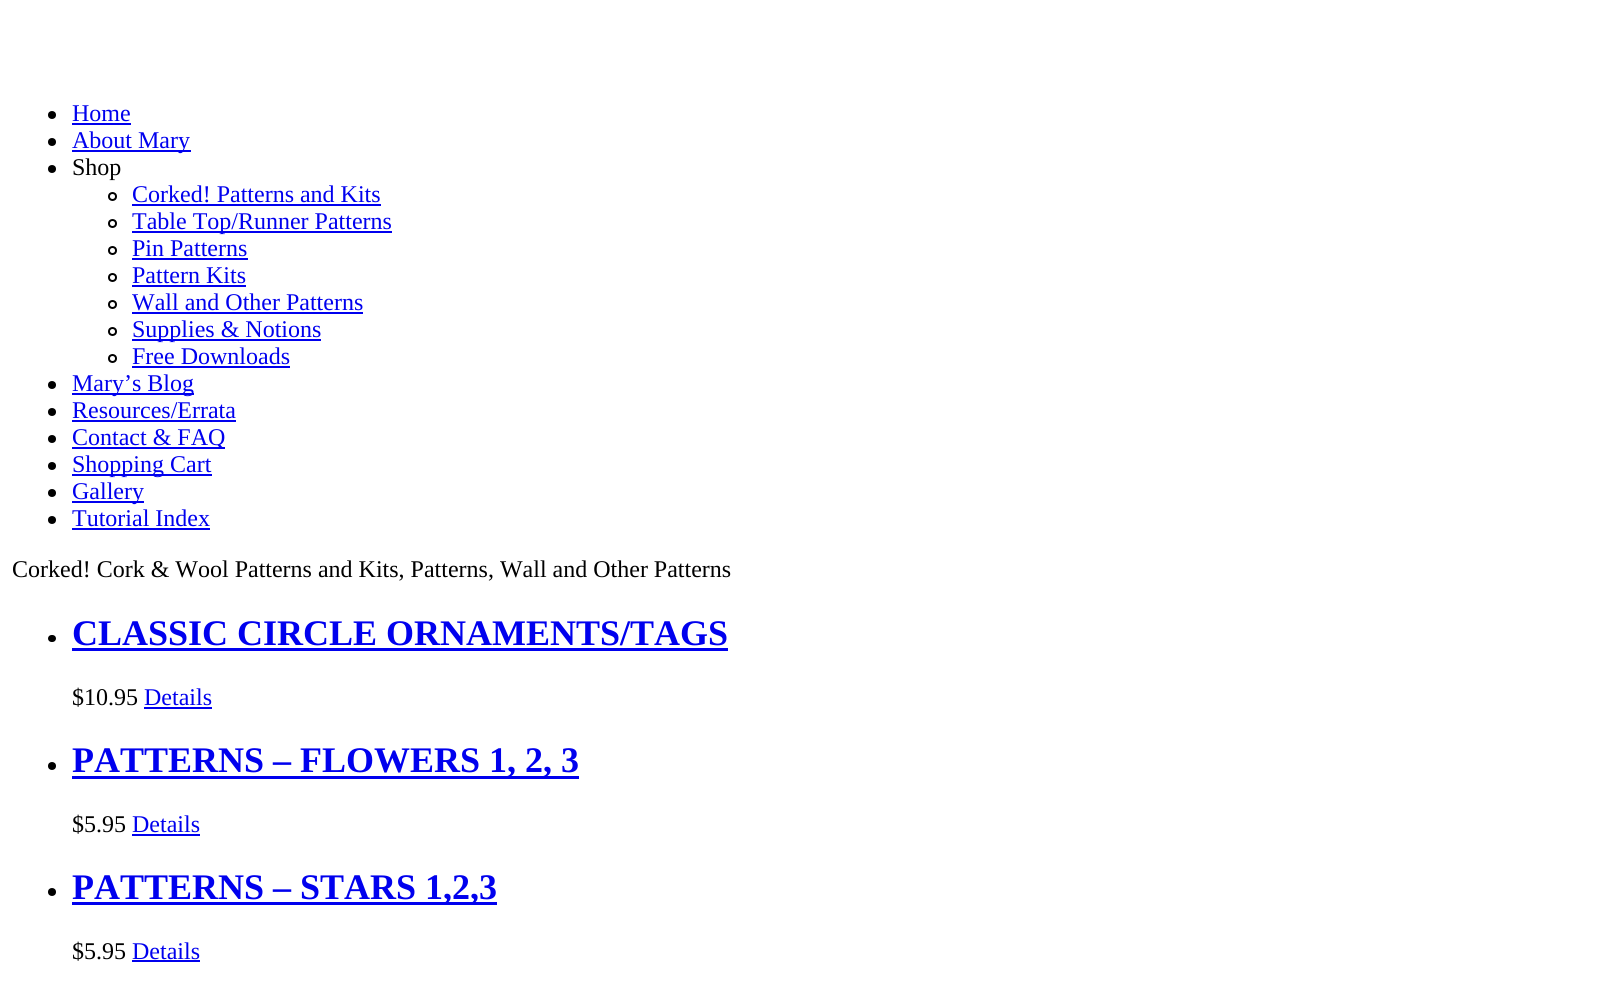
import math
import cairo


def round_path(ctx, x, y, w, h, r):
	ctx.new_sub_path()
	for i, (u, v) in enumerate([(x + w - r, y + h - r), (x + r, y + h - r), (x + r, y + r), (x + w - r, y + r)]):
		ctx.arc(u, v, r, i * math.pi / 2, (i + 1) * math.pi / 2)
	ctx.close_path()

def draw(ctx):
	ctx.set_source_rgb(1, 1, 1)
	ctx.paint()
	ctx.set_source_rgb(0, 0, 0)
	ctx.arc(52, 115, 4, 0, 2 * math.pi)
	ctx.fill()
	ctx.select_font_face('Liberation Serif')
	ctx.set_font_size(24)
	ctx.set_source_rgb(0, 0, 0.933)
	ctx.move_to(72, 121)
	ctx.show_text('Home')
	ctx.rectangle(72, 123, 59, 2)
	ctx.fill()
	ctx.set_source_rgb(0, 0, 0)
	ctx.arc(52, 142, 4, 0, 2 * math.pi)
	ctx.fill()
	ctx.set_source_rgb(0, 0, 0.933)
	ctx.rectangle(72, 150, 119, 2)
	ctx.fill()
	ctx.move_to(72, 148)
	ctx.show_text('About Mary')
	ctx.set_source_rgb(0, 0, 0)
	ctx.new_path()
	ctx.arc(52, 169, 4, 0, 2 * math.pi)
	ctx.fill()
	ctx.move_to(72, 175)
	ctx.show_text('Shop')
	ctx.new_path()
	ctx.arc(112.5, 196.5, 3.5, 0, 2 * math.pi)
	ctx.stroke()
	ctx.set_source_rgb(0, 0, 0.933)
	ctx.move_to(132, 202)
	ctx.show_text('Corked! Patterns and Kits')
	ctx.rectangle(132, 204, 249, 2)
	ctx.fill()
	ctx.arc(112.5, 223.5, 3.5, 0, 2 * math.pi)
	ctx.set_source_rgb(0, 0, 0)
	ctx.stroke()
	ctx.set_source_rgb(0, 0, 0.933)
	ctx.rectangle(132, 231, 260, 2)
	ctx.fill()
	ctx.move_to(132, 229)
	ctx.show_text('Table Top/Runner Patterns')
	ctx.new_path()
	ctx.arc(112.5, 250.5, 3.5, 0, 2 * math.pi)
	ctx.set_source_rgb(0, 0, 0)
	ctx.stroke()
	ctx.set_source_rgb(0, 0, 0.933)
	ctx.move_to(132, 256)
	ctx.show_text('Pin Patterns')
	ctx.rectangle(132, 258, 116, 2)
	ctx.fill()
	ctx.arc(112.5, 277.5, 3.5, 0, 2 * math.pi)
	ctx.set_source_rgb(0, 0, 0)
	ctx.stroke()
	ctx.set_source_rgb(0, 0, 0.933)
	ctx.move_to(132, 283)
	ctx.show_text('Pattern Kits')
	ctx.rectangle(132, 285, 114, 2)
	ctx.fill()
	ctx.arc(112.5, 304.5, 3.5, 0, 2 * math.pi)
	ctx.set_source_rgb(0, 0, 0)
	ctx.stroke()
	ctx.set_source_rgb(0, 0, 0.933)
	ctx.move_to(132, 310)
	ctx.show_text('Wall and Other Patterns')
	ctx.rectangle(132, 312, 231, 2)
	ctx.fill()
	ctx.arc(112.5, 331.5, 3.5, 0, 2 * math.pi)
	ctx.set_source_rgb(0, 0, 0)
	ctx.stroke()
	ctx.set_source_rgb(0, 0, 0.933)
	ctx.rectangle(132, 339, 189, 2)
	ctx.fill()
	ctx.move_to(132, 337)
	ctx.show_text('Supplies & Notions')
	ctx.new_path()
	ctx.arc(112.5, 358.5, 3.5, 0, 2 * math.pi)
	ctx.set_source_rgb(0, 0, 0)
	ctx.stroke()
	ctx.set_source_rgb(0, 0, 0.933)
	ctx.move_to(132, 364)
	ctx.show_text('Free Downloads')
	ctx.rectangle(132, 366, 158, 2)
	ctx.fill()
	ctx.set_source_rgb(0, 0, 0)
	ctx.arc(52, 385, 4, 0, 2 * math.pi)
	ctx.fill()
	ctx.set_source_rgb(0, 0, 0.933)
	ctx.rectangle(72, 393, 122, 2)
	ctx.fill()
	ctx.move_to(72, 391)
	ctx.show_text('Mary’s Blog')
	ctx.set_source_rgb(0, 0, 0)
	ctx.new_path()
	ctx.arc(52, 412, 4, 0, 2 * math.pi)
	ctx.fill()
	ctx.set_source_rgb(0, 0, 0.933)
	ctx.move_to(72, 418)
	ctx.show_text('Resources/Errata')
	ctx.rectangle(72, 420, 164, 2)
	ctx.fill()
	ctx.set_source_rgb(0, 0, 0)
	ctx.arc(52, 439, 4, 0, 2 * math.pi)
	ctx.fill()
	ctx.set_source_rgb(0, 0, 0.933)
	ctx.rectangle(72, 447, 153, 2)
	ctx.fill()
	ctx.move_to(72, 445)
	ctx.show_text('Contact & FAQ')
	ctx.set_source_rgb(0, 0, 0)
	ctx.new_path()
	ctx.arc(52, 466, 4, 0, 2 * math.pi)
	ctx.fill()
	ctx.set_source_rgb(0, 0, 0.933)
	ctx.rectangle(72, 474, 140, 2)
	ctx.fill()
	ctx.move_to(72, 472)
	ctx.show_text('Shopping Cart')
	ctx.set_source_rgb(0, 0, 0)
	ctx.new_path()
	ctx.arc(52, 493, 4, 0, 2 * math.pi)
	ctx.fill()
	ctx.set_source_rgb(0, 0, 0.933)
	ctx.rectangle(72, 501, 72, 2)
	ctx.fill()
	ctx.move_to(72, 499)
	ctx.show_text('Gallery')
	ctx.set_source_rgb(0, 0, 0)
	ctx.new_path()
	ctx.arc(52, 520, 4, 0, 2 * math.pi)
	ctx.fill()
	ctx.set_source_rgb(0, 0, 0.933)
	ctx.move_to(72, 526)
	ctx.show_text('Tutorial Index')
	ctx.rectangle(72, 528, 138, 2)
	ctx.fill()
	ctx.set_source_rgb(0, 0, 0)
	ctx.move_to(12, 577)
	ctx.show_text('Corked! Cork & Wool Patterns and Kits, Patterns, Wall and Other Patterns')
	round_path(ctx, 48, 635, 8, 7, 3.5)
	ctx.fill()
	ctx.select_font_face('Liberation Serif', cairo.FONT_SLANT_NORMAL, cairo.FONT_WEIGHT_BOLD)
	ctx.set_font_size(36)
	ctx.set_source_rgb(0, 0, 0.933)
	ctx.move_to(72, 645)
	ctx.show_text('CLASSIC CIRCLE ORNAMENTS/TAGS')
	ctx.rectangle(72, 648, 656, 3)
	ctx.fill()
	ctx.select_font_face('Liberation Serif')
	ctx.set_font_size(24)
	ctx.set_source_rgb(0, 0, 0)
	ctx.move_to(72, 705)
	ctx.show_text('$10.95')
	ctx.set_source_rgb(0, 0, 0.933)
	ctx.move_to(144, 705)
	ctx.show_text('Details')
	ctx.rectangle(144, 707, 68, 2)
	ctx.fill()
	ctx.set_source_rgb(0, 0, 0)
	ctx.arc(52, 766, 4, 0, 2 * math.pi)
	ctx.fill()
	ctx.set_source_rgb(0, 0, 0.933)
	ctx.rectangle(72, 776, 507, 3)
	ctx.fill()
	ctx.select_font_face('Liberation Serif', cairo.FONT_SLANT_NORMAL, cairo.FONT_WEIGHT_BOLD)
	ctx.set_font_size(36)
	ctx.move_to(72, 772)
	ctx.show_text('PATTERNS – FLOWERS 1, 2, 3')
	ctx.select_font_face('Liberation Serif')
	ctx.set_font_size(24)
	ctx.set_source_rgb(0, 0, 0)
	ctx.move_to(72, 832)
	ctx.show_text('$5.95')
	ctx.set_source_rgb(0, 0, 0.933)
	ctx.move_to(132, 832)
	ctx.show_text('Details')
	ctx.rectangle(132, 834, 68, 2)
	ctx.fill()
	ctx.set_source_rgb(0, 0, 0)
	ctx.arc(52, 892, 4, 0, 2 * math.pi)
	ctx.fill()
	ctx.set_source_rgb(0, 0, 0.933)
	ctx.rectangle(72, 902, 425, 3)
	ctx.fill()
	ctx.select_font_face('Liberation Serif', cairo.FONT_SLANT_NORMAL, cairo.FONT_WEIGHT_BOLD)
	ctx.set_font_size(36)
	ctx.move_to(72, 899)
	ctx.show_text('PATTERNS – STARS 1,2,3')
	ctx.select_font_face('Liberation Serif')
	ctx.set_font_size(24)
	ctx.set_source_rgb(0, 0, 0)
	ctx.move_to(72, 959)
	ctx.show_text('$5.95')
	ctx.set_source_rgb(0, 0, 0.933)
	ctx.move_to(132, 959)
	ctx.show_text('Details')
	ctx.rectangle(132, 960, 68, 2)
	ctx.fill()


surface = cairo.ImageSurface(cairo.FORMAT_RGB24, 1621, 998)
ctx = cairo.Context(surface)
options = cairo.FontOptions()
options.set_hint_metrics(cairo.HINT_METRICS_OFF)
options.set_hint_style(cairo.HINT_STYLE_NONE)
ctx.set_font_options(options)
ctx.set_miter_limit(4)
draw(ctx)
surface.write_to_png('image.png')
